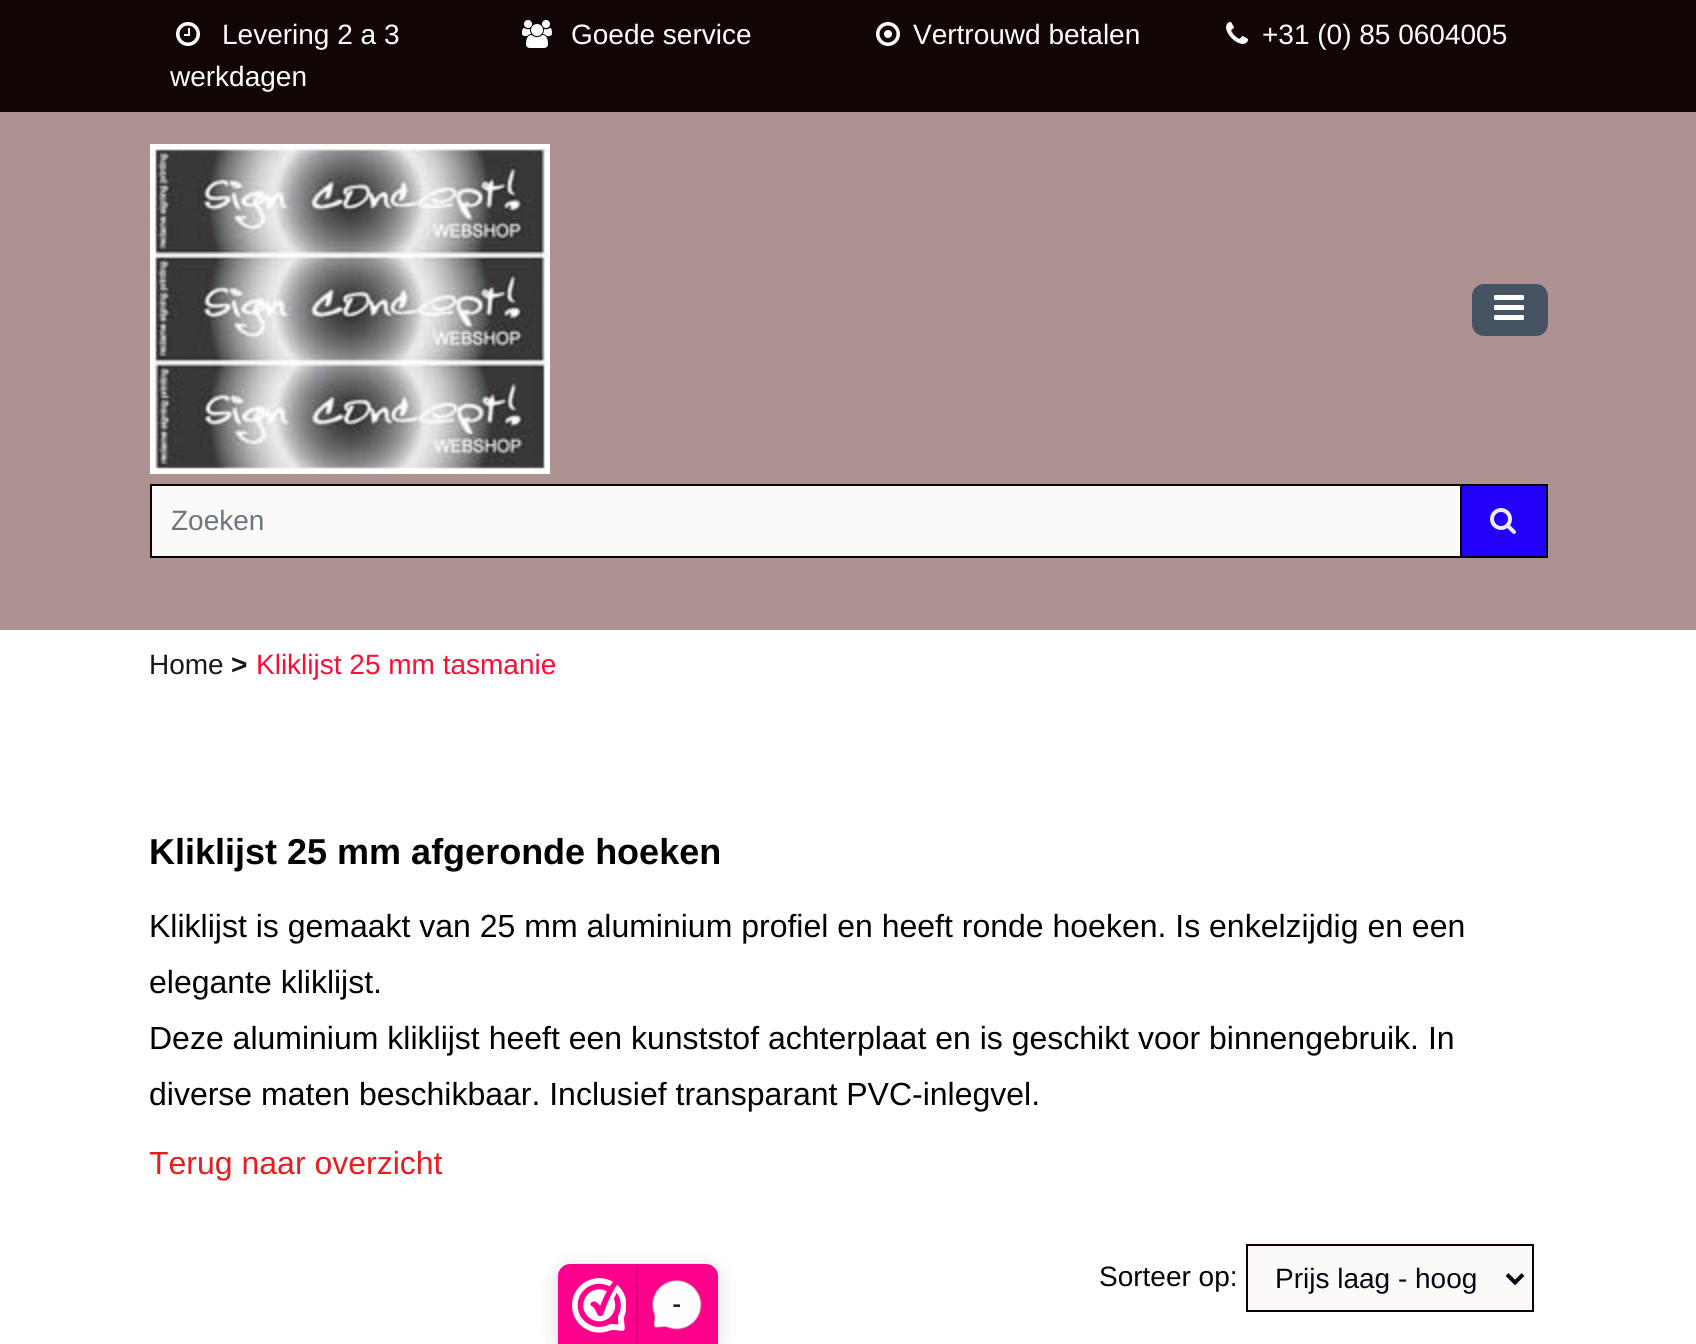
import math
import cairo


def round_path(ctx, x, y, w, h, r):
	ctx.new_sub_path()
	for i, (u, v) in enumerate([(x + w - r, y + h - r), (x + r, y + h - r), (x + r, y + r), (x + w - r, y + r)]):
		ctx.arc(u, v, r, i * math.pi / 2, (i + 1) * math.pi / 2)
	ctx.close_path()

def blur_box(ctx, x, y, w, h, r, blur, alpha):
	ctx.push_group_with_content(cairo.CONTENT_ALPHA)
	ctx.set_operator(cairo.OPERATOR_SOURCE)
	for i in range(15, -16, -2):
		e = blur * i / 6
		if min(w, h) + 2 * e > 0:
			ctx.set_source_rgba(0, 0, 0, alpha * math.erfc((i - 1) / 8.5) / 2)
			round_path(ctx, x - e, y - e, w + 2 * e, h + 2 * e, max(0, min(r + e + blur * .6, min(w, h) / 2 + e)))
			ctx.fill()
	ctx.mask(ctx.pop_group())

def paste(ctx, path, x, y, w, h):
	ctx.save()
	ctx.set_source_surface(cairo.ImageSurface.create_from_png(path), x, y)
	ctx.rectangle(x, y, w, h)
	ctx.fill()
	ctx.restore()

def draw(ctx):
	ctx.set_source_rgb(1, 1, 1)
	ctx.paint()
	ctx.set_source_rgb(0.071, 0.02, 0.02)
	ctx.rectangle(0, 0, 1696, 112)
	ctx.fill()
	paste(ctx, 'media/1.png', 176, 22, 24, 24)
	ctx.select_font_face('Liberation Sans')
	ctx.set_font_size(28)
	ctx.set_source_rgb(1, 1, 1)
	ctx.move_to(222, 44)
	ctx.show_text('Levering 2 a 3')
	ctx.move_to(170, 86)
	ctx.show_text('werkdagen')
	paste(ctx, 'media/2.png', 522, 20, 30, 28)
	ctx.move_to(571, 44)
	ctx.show_text('Goede service')
	paste(ctx, 'media/3.png', 876, 22, 24, 24)
	ctx.move_to(913, 44)
	ctx.show_text('Vertrouwd betalen')
	paste(ctx, 'media/4.png', 1226, 22, 22, 22)
	ctx.move_to(1262, 44)
	ctx.show_text('+31 (0) 85 0604005')
	ctx.set_source_rgb(0.682, 0.569, 0.569)
	ctx.rectangle(0, 112, 1696, 518)
	ctx.fill()
	paste(ctx, 'media/5.png', 150, 144, 400, 330)
	ctx.set_source_rgb(0.275, 0.325, 0.388)
	round_path(ctx, 1473, 285, 74, 50, 11)
	ctx.fill_preserve()
	ctx.stroke()
	paste(ctx, 'media/6.png', 1494, 295, 30, 25)
	ctx.set_source_rgb(0.988, 0.976, 0.976)
	ctx.rectangle(151, 485, 1310, 72)
	ctx.fill_preserve()
	ctx.set_source_rgb(0.059, 0, 0)
	ctx.stroke()
	ctx.set_source_rgb(0.424, 0.459, 0.49)
	ctx.move_to(171, 530)
	ctx.show_text('Zoeken')
	ctx.set_source_rgb(0.137, 0, 0.988)
	ctx.rectangle(1461, 485, 86, 72)
	ctx.fill_preserve()
	ctx.set_source_rgb(0, 0, 0.016)
	ctx.stroke()
	paste(ctx, 'media/7.png', 1490, 508, 26, 26)
	ctx.set_source_rgb(0.11, 0.09, 0.09)
	ctx.move_to(149, 674)
	ctx.show_text('Home')
	ctx.select_font_face('Liberation Sans', cairo.FONT_SLANT_NORMAL, cairo.FONT_WEIGHT_BOLD)
	ctx.move_to(231, 674)
	ctx.show_text('>')
	ctx.select_font_face('Liberation Sans')
	ctx.set_source_rgb(0.973, 0.055, 0.204)
	ctx.move_to(256, 674)
	ctx.show_text('Kliklijst 25 mm tasmanie')
	ctx.select_font_face('Liberation Sans', cairo.FONT_SLANT_NORMAL, cairo.FONT_WEIGHT_BOLD)
	ctx.set_font_size(36)
	ctx.set_source_rgb(0.02, 0, 0)
	ctx.move_to(149, 864)
	ctx.show_text('Kliklijst 25 mm afgeronde hoeken')
	ctx.select_font_face('Liberation Sans')
	ctx.set_font_size(32)
	for x, y, s in [
		(149, 937, 'Kliklijst is gemaakt van 25 mm aluminium profiel en heeft ronde hoeken. Is enkelzijdig en een'),
		(149, 993, 'elegante kliklijst.'),
		(149, 1049, 'Deze aluminium kliklijst heeft een kunststof achterplaat en is geschikt voor binnengebruik. In'),
		(149, 1105, 'diverse maten beschikbaar. Inclusief transparant PVC-inlegvel.'),
	]:
		ctx.move_to(x, y)
		ctx.show_text(s)
	ctx.set_source_rgb(0.906, 0.118, 0.118)
	ctx.move_to(149, 1174)
	ctx.show_text('Terug naar overzicht')
	ctx.set_font_size(28)
	ctx.set_source_rgb(0.02, 0, 0)
	ctx.move_to(1099, 1286)
	ctx.show_text('Sorteer op:')
	ctx.set_source_rgb(0.988, 0.976, 0.976)
	ctx.rectangle(1247, 1245, 286, 66)
	ctx.fill_preserve()
	ctx.set_source_rgb(0.059, 0, 0)
	ctx.stroke()
	ctx.new_path()
	ctx.move_to(1507, 1274.5)
	ctx.line_to(1515, 1282.5)
	ctx.line_to(1523, 1274.5)
	ctx.set_source_rgb(0.024, 0.024, 0.078)
	ctx.set_line_width(4)
	ctx.stroke()
	ctx.move_to(1275, 1288)
	ctx.show_text('Prijs laag - hoog')
	ctx.set_source_rgb(0, 0, 0)
	blur_box(ctx, 558, 1268, 160, 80, 12, 10, 0.15)
	ctx.set_source_rgb(0.996, 0, 0.549)
	ctx.new_path()
	ctx.move_to(570, 1264)
	ctx.line_to(706, 1264)
	ctx.curve_to(712.5, 1264, 718, 1269.5, 718, 1276)
	ctx.line_to(718, 1344)
	ctx.line_to(558, 1344)
	ctx.line_to(558, 1276)
	ctx.curve_to(558, 1269.5, 563.5, 1264, 570, 1264)
	ctx.close_path()
	ctx.fill()
	paste(ctx, 'media/8.png', 572, 1278, 54, 55)
	ctx.set_source_rgb(0.847, 0, 0.467)
	ctx.rectangle(636, 1266, 2, 78)
	ctx.fill()
	paste(ctx, 'media/9.png', 652, 1280, 50, 50)
	ctx.select_font_face('Roboto', cairo.FONT_SLANT_NORMAL, cairo.FONT_WEIGHT_BOLD)
	ctx.set_font_size(24)
	ctx.set_source_rgb(0.153, 0.149, 0.149)
	ctx.move_to(672, 1313)
	ctx.show_text('-')


surface = cairo.ImageSurface(cairo.FORMAT_RGB24, 1696, 1344)
ctx = cairo.Context(surface)
options = cairo.FontOptions()
options.set_hint_metrics(cairo.HINT_METRICS_OFF)
options.set_hint_style(cairo.HINT_STYLE_NONE)
ctx.set_font_options(options)
ctx.set_miter_limit(4)
draw(ctx)
surface.write_to_png('image.png')
